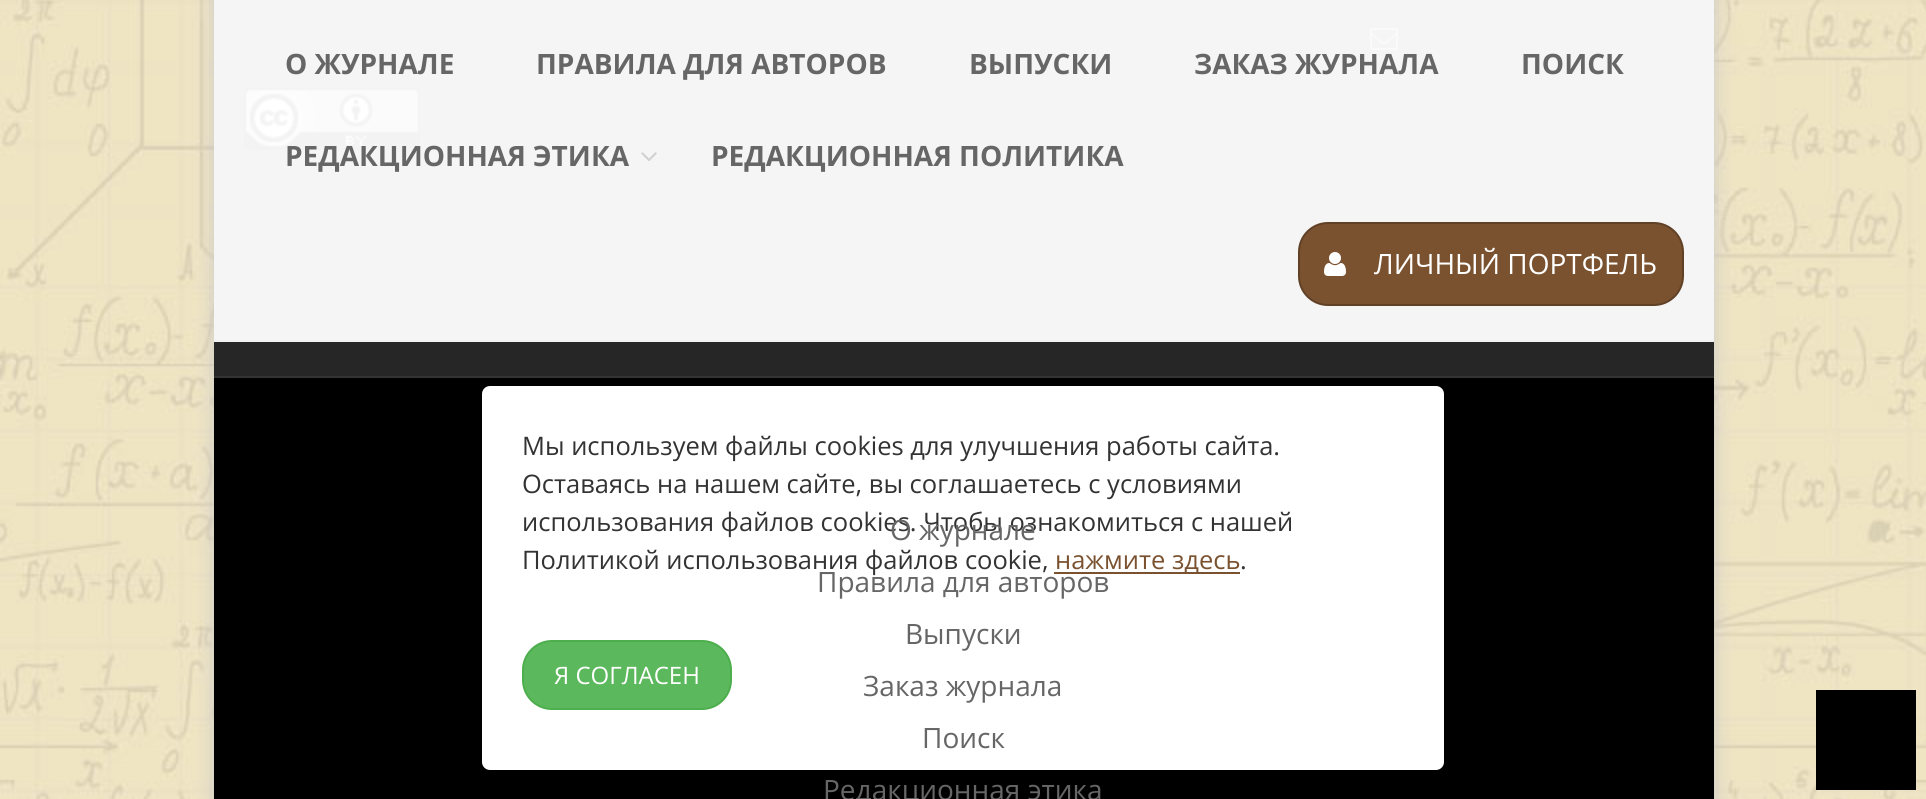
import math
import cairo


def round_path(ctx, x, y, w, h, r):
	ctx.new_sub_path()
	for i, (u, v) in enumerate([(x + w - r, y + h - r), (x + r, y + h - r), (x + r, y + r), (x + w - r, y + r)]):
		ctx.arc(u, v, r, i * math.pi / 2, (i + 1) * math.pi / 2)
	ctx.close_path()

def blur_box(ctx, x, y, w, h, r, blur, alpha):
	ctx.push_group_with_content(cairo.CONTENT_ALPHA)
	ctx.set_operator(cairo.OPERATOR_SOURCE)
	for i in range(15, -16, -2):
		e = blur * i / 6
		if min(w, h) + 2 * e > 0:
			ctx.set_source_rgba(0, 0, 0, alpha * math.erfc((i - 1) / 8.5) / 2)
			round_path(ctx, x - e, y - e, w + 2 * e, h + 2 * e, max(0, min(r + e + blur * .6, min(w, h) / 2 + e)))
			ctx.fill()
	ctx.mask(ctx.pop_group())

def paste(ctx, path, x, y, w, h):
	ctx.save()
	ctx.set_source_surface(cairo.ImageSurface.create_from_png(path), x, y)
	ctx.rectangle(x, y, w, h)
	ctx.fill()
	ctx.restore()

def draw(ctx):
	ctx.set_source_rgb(1, 1, 1)
	ctx.paint()
	paste(ctx, 'media/1.png', 0, 0, 1926, 799)
	ctx.set_source_rgb(0.792, 0.792, 0.792)
	blur_box(ctx, 214, -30, 1500, 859, 0, 10, 1)
	ctx.set_source_rgb(0.149, 0.149, 0.149)
	ctx.rectangle(214, 0, 1500, 376)
	ctx.fill()
	paste(ctx, 'media/4.png', 1370, 28, 28, 22)
	paste(ctx, 'media/5.png', 244, 88, 176, 62)
	ctx.set_source_rgba(1, 1, 1, 0.95)
	ctx.rectangle(214, 0, 1500, 340)
	ctx.fill()
	ctx.set_source_rgb(0.945, 0.945, 0.945)
	ctx.rectangle(214, 340, 1500, 2)
	ctx.fill()
	ctx.select_font_face('Open Sans', cairo.FONT_SLANT_NORMAL, cairo.FONT_WEIGHT_BOLD)
	ctx.set_font_size(28)
	ctx.set_source_rgb(0.4, 0.4, 0.4)
	for x, y, s in [
		(285, 74, 'О ЖУРНАЛЕ'),
		(536, 74, 'ПРАВИЛА ДЛЯ АВТОРОВ'),
		(969, 74, 'ВЫПУСКИ'),
		(1194, 74, 'ЗАКАЗ ЖУРНАЛА'),
		(1521, 74, 'ПОИСК'),
		(285, 166, 'РЕДАКЦИОННАЯ ЭТИКА'),
	]:
		ctx.move_to(x, y)
		ctx.show_text(s)
	paste(ctx, 'media/2.png', 641, 152, 16, 9)
	ctx.move_to(711, 166)
	ctx.show_text('РЕДАКЦИОННАЯ ПОЛИТИКА')
	ctx.set_source_rgb(0.478, 0.322, 0.188)
	round_path(ctx, 1299, 223, 384, 82, 29)
	ctx.fill_preserve()
	ctx.set_source_rgb(0.38, 0.255, 0.149)
	ctx.stroke()
	paste(ctx, 'media/3.png', 1324, 252, 22, 24)
	ctx.select_font_face('Open Sans')
	ctx.set_source_rgb(1, 1, 1)
	ctx.move_to(1374, 274)
	ctx.show_text('ЛИЧНЫЙ ПОРТФЕЛЬ')
	ctx.set_source_rgb(0.2, 0.2, 0.2)
	ctx.rectangle(214, 376, 1500, 2)
	ctx.fill()
	ctx.set_source_rgb(0, 0, 0)
	ctx.rectangle(214, 378, 1500, 421)
	ctx.fill()
	ctx.set_source_rgb(1, 1, 1)
	round_path(ctx, 482, 386, 962, 384, 8)
	ctx.fill()
	ctx.set_font_size(25.5)
	ctx.set_source_rgb(0.2, 0.2, 0.2)
	ctx.move_to(522, 531)
	ctx.show_text('использования файлов cookies. Чтобы ознакомиться с нашей')
	ctx.set_font_size(28)
	ctx.set_source_rgb(0.4, 0.4, 0.4)
	ctx.move_to(890, 540)
	ctx.show_text('О журнале')
	ctx.set_source_rgb(0.478, 0.322, 0.188)
	ctx.rectangle(1054, 572, 186, 2)
	ctx.fill()
	ctx.set_source_rgb(0.4, 0.4, 0.4)
	for x, y, s in [
		(817, 592, 'Правила для авторов'),
		(905, 644, 'Выпуски'),
		(863, 696, 'Заказ журнала'),
		(922, 748, 'Поиск'),
		(823, 800, 'Редакционная этика'),
	]:
		ctx.move_to(x, y)
		ctx.show_text(s)
	ctx.set_font_size(25.5)
	ctx.set_source_rgb(0.2, 0.2, 0.2)
	for x, y, s in [
		(522, 455, 'Мы используем файлы cookies для улучшения работы сайта.'),
		(522, 493, 'Оставаясь на нашем сайте, вы соглашаетесь с условиями'),
		(522, 569, 'Политикой использования файлов cookie,'),
	]:
		ctx.move_to(x, y)
		ctx.show_text(s)
	ctx.set_source_rgb(0.478, 0.322, 0.188)
	ctx.move_to(1055, 569)
	ctx.show_text('нажмите здесь')
	ctx.set_source_rgb(0.2, 0.2, 0.2)
	ctx.move_to(1240, 569)
	ctx.show_text('.')
	ctx.set_source_rgb(0.361, 0.722, 0.361)
	round_path(ctx, 523, 641, 208, 68, 29)
	ctx.fill_preserve()
	ctx.set_source_rgb(0.298, 0.682, 0.298)
	ctx.stroke()
	ctx.set_font_size(24)
	ctx.set_source_rgb(1, 1, 1)
	ctx.move_to(554, 684)
	ctx.show_text('Я СОГЛАСЕН')
	ctx.set_source_rgb(0, 0, 0)
	ctx.rectangle(1816, 690, 100, 100)
	ctx.fill()


surface = cairo.ImageSurface(cairo.FORMAT_RGB24, 1926, 799)
ctx = cairo.Context(surface)
options = cairo.FontOptions()
options.set_hint_metrics(cairo.HINT_METRICS_OFF)
options.set_hint_style(cairo.HINT_STYLE_NONE)
ctx.set_font_options(options)
ctx.set_miter_limit(4)
draw(ctx)
surface.write_to_png('image.png')
